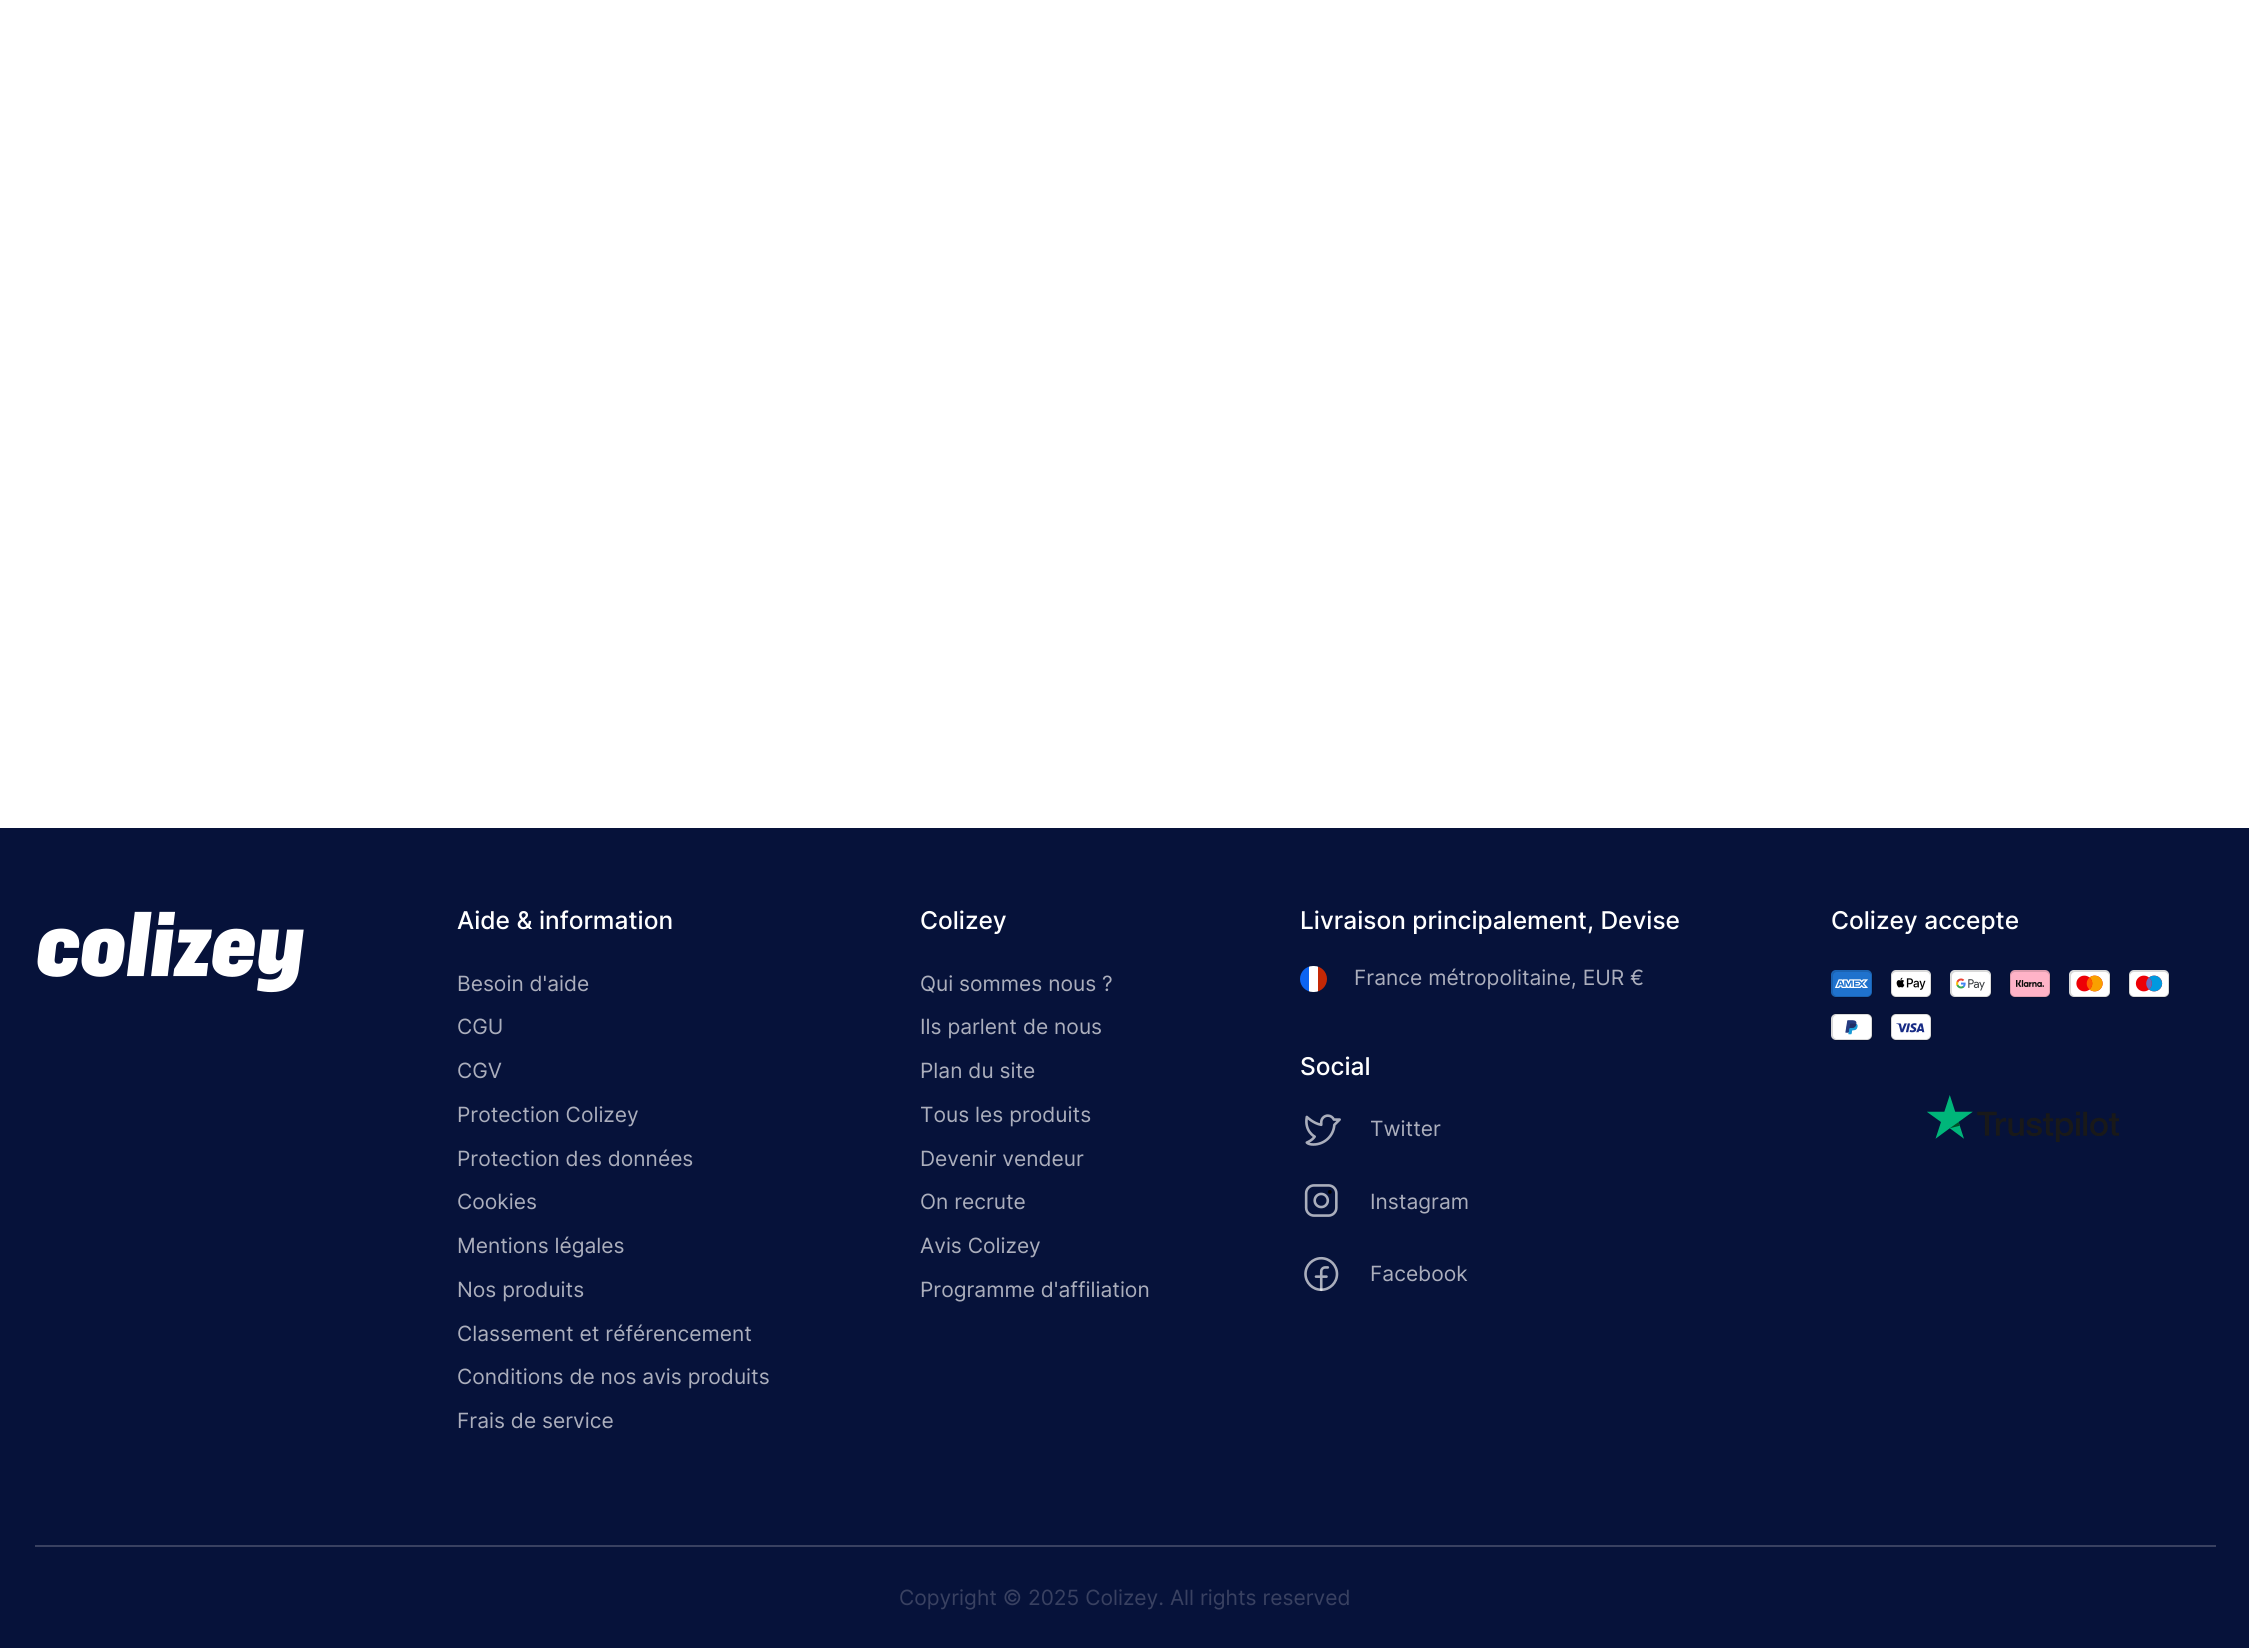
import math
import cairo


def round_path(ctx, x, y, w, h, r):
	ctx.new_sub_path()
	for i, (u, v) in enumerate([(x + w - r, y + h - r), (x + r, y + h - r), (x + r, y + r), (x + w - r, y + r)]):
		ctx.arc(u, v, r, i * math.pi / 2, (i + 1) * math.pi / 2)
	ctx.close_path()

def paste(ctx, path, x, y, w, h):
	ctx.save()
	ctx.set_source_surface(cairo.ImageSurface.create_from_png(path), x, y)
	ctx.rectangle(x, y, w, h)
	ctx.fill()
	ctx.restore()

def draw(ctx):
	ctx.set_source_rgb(1, 1, 1)
	ctx.paint()
	ctx.set_source_rgb(0.027, 0.071, 0.227)
	ctx.rectangle(0, 828, 2249, 820)
	ctx.fill()
	paste(ctx, 'media/1.png', 37, 911, 267, 82)
	ctx.select_font_face('Inter Medium')
	ctx.set_font_size(24.5)
	ctx.set_source_rgb(1, 1, 1)
	ctx.move_to(457, 929)
	ctx.show_text('Aide & information')
	ctx.select_font_face('Inter')
	ctx.set_font_size(21)
	ctx.set_source_rgb(0.671, 0.682, 0.737)
	for x, y, s in [
		(457, 991, 'Besoin d\'aide'),
		(457, 1034, 'CGU'),
		(457, 1078, 'CGV'),
		(457, 1122, 'Protection Colizey'),
		(457, 1166, 'Protection des données'),
		(457, 1209, 'Cookies'),
		(457, 1253, 'Mentions légales'),
		(457, 1297, 'Nos produits'),
		(457, 1341, 'Classement et référencement'),
		(457, 1384, 'Conditions de nos avis produits'),
		(457, 1428, 'Frais de service'),
	]:
		ctx.move_to(x, y)
		ctx.show_text(s)
	ctx.select_font_face('Inter Medium')
	ctx.set_font_size(24.5)
	ctx.set_source_rgb(1, 1, 1)
	ctx.move_to(920, 929)
	ctx.show_text('Colizey')
	ctx.select_font_face('Inter')
	ctx.set_font_size(21)
	ctx.set_source_rgb(0.671, 0.682, 0.737)
	for x, y, s in [
		(920, 991, 'Qui sommes nous ?'),
		(920, 1034, 'Ils parlent de nous'),
		(920, 1078, 'Plan du site'),
		(920, 1122, 'Tous les produits'),
		(920, 1166, 'Devenir vendeur'),
		(920, 1209, 'On recrute'),
		(920, 1253, 'Avis Colizey'),
		(920, 1297, 'Programme d\'affiliation'),
	]:
		ctx.move_to(x, y)
		ctx.show_text(s)
	ctx.select_font_face('Inter Medium')
	ctx.set_font_size(24.5)
	ctx.set_source_rgb(1, 1, 1)
	ctx.move_to(1300, 929)
	ctx.show_text('Livraison principalement, Devise')
	ctx.save()
	round_path(ctx, 1300, 966, 27, 26, 13)
	ctx.clip()
	ctx.set_source_rgb(0.047, 0.392, 0.949)
	ctx.rectangle(1300, 966, 9, 26)
	ctx.fill()
	ctx.set_source_rgb(1, 1, 1)
	ctx.rectangle(1309, 966, 9, 26)
	ctx.fill()
	ctx.set_source_rgb(0.769, 0.157, 0.02)
	ctx.rectangle(1318, 966, 9, 26)
	ctx.fill()
	ctx.restore()
	ctx.select_font_face('Inter')
	ctx.set_font_size(21)
	ctx.set_source_rgb(0.671, 0.682, 0.737)
	ctx.move_to(1354, 985)
	ctx.show_text('France métropolitaine, EUR €')
	ctx.select_font_face('Inter Medium')
	ctx.set_font_size(24.5)
	ctx.set_source_rgb(1, 1, 1)
	ctx.move_to(1300, 1075)
	ctx.show_text('Social')
	paste(ctx, 'media/2.png', 1305, 1114, 36, 32)
	ctx.select_font_face('Inter')
	ctx.set_font_size(21)
	ctx.set_source_rgb(0.671, 0.682, 0.737)
	ctx.move_to(1370, 1136)
	ctx.show_text('Twitter')
	paste(ctx, 'media/3.png', 1304, 1184, 34, 33)
	ctx.move_to(1370, 1209)
	ctx.show_text('Instagram')
	paste(ctx, 'media/4.png', 1304, 1256, 35, 36)
	ctx.move_to(1370, 1281)
	ctx.show_text('Facebook')
	ctx.select_font_face('Inter Medium')
	ctx.set_font_size(24.5)
	ctx.set_source_rgb(1, 1, 1)
	ctx.move_to(1831, 929)
	ctx.show_text('Colizey accepte')
	paste(ctx, 'media/5.png', 1831, 970, 42, 28)
	paste(ctx, 'media/6.png', 1890, 970, 42, 28)
	paste(ctx, 'media/7.png', 1950, 970, 42, 28)
	paste(ctx, 'media/8.png', 2009, 970, 42, 28)
	paste(ctx, 'media/9.png', 2069, 970, 42, 28)
	paste(ctx, 'media/10.png', 2128, 970, 42, 28)
	paste(ctx, 'media/11.png', 1831, 1013, 42, 28)
	paste(ctx, 'media/12.png', 1890, 1013, 42, 28)
	paste(ctx, 'media/13.png', 1927, 1095, 192, 47)
	ctx.set_source_rgb(0.224, 0.255, 0.38)
	ctx.rectangle(35, 1545, 2181, 2)
	ctx.fill()
	ctx.select_font_face('Inter')
	ctx.set_font_size(21)
	ctx.move_to(899, 1605)
	ctx.show_text('Copyright © 2025 Colizey. All rights reserved')


surface = cairo.ImageSurface(cairo.FORMAT_RGB24, 2249, 1648)
ctx = cairo.Context(surface)
options = cairo.FontOptions()
options.set_hint_metrics(cairo.HINT_METRICS_OFF)
options.set_hint_style(cairo.HINT_STYLE_NONE)
ctx.set_font_options(options)
ctx.set_miter_limit(4)
draw(ctx)
surface.write_to_png('image.png')
